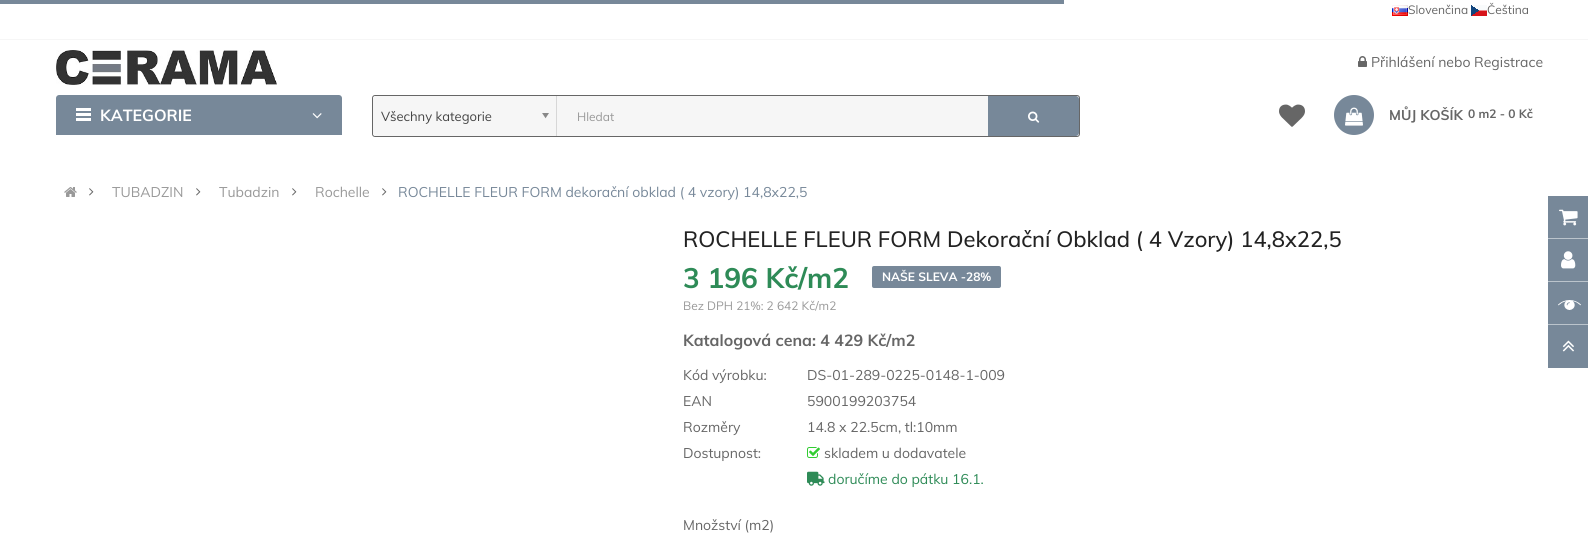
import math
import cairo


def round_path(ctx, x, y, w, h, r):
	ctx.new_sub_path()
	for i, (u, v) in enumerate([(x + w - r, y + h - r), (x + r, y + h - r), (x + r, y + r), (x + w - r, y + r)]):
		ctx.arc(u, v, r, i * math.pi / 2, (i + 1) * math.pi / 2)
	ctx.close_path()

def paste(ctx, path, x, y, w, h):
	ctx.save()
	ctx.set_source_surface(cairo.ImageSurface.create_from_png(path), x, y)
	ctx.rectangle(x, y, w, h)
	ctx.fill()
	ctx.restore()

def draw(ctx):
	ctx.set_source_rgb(1, 1, 1)
	ctx.paint()
	ctx.set_source_rgb(0.467, 0.533, 0.6)
	ctx.rectangle(0, 0, 1064, 4)
	ctx.fill()
	ctx.set_source_rgb(0.961, 0.961, 0.961)
	ctx.rectangle(0, 39, 1588, 1)
	ctx.fill()
	paste(ctx, 'media/1.png', 1392, 5, 16, 11)
	ctx.select_font_face('Muli')
	ctx.set_font_size(12)
	ctx.set_source_rgb(0.4, 0.4, 0.4)
	ctx.move_to(1408, 14)
	ctx.show_text('Slovenčina')
	paste(ctx, 'media/2.png', 1471, 5, 16, 11)
	ctx.move_to(1487, 14)
	ctx.show_text('Čeština')
	paste(ctx, 'media/3.png', 56, 50, 221, 35)
	paste(ctx, 'media/4.png', 1358, 56, 9, 11)
	ctx.set_font_size(14)
	ctx.move_to(1371, 67)
	ctx.show_text('Přihlášení nebo Registrace')
	ctx.set_source_rgb(0.467, 0.533, 0.6)
	ctx.new_path()
	ctx.move_to(59, 95)
	ctx.line_to(339, 95)
	ctx.curve_to(340.5, 95, 342, 96.5, 342, 98)
	ctx.line_to(342, 135)
	ctx.line_to(56, 135)
	ctx.line_to(56, 98)
	ctx.curve_to(56, 96.5, 57.5, 95, 59, 95)
	ctx.close_path()
	ctx.fill()
	ctx.set_source_rgb(1, 1, 1)
	ctx.rectangle(76, 108, 15, 3)
	ctx.rectangle(76, 113, 15, 3)
	ctx.rectangle(76, 118, 15, 3)
	ctx.fill()
	ctx.select_font_face('Muli', cairo.FONT_SLANT_NORMAL, cairo.FONT_WEIGHT_BOLD)
	ctx.set_font_size(16)
	ctx.move_to(100, 121)
	ctx.show_text('KATEGORIE')
	paste(ctx, 'media/5.png', 312, 113, 10, 6)
	round_path(ctx, 372.5, 95.5, 707, 41, 2.5)
	ctx.set_source_rgb(0.4, 0.4, 0.4)
	ctx.set_line_width(1)
	ctx.stroke()
	ctx.set_source_rgb(0.961, 0.961, 0.961)
	ctx.new_path()
	ctx.move_to(376, 96)
	ctx.line_to(557, 96)
	ctx.line_to(557, 136)
	ctx.line_to(376, 136)
	ctx.curve_to(374.5, 136, 373, 134.5, 373, 133)
	ctx.line_to(373, 99)
	ctx.curve_to(373, 97.5, 374.5, 96, 376, 96)
	ctx.close_path()
	ctx.fill()
	ctx.set_source_rgb(0.843, 0.843, 0.843)
	ctx.rectangle(556, 96, 1, 40)
	ctx.fill()
	ctx.select_font_face('Muli')
	ctx.set_font_size(13)
	ctx.set_source_rgb(0.267, 0.267, 0.267)
	ctx.move_to(381, 121)
	ctx.show_text('Všechny kategorie')
	paste(ctx, 'media/6.png', 542, 113, 7, 6)
	ctx.set_source_rgb(0.961, 0.961, 0.961)
	ctx.new_path()
	ctx.move_to(557, 96)
	ctx.line_to(1075, 96)
	ctx.curve_to(1077, 96, 1079, 98, 1079, 100)
	ctx.line_to(1079, 132)
	ctx.curve_to(1079, 134, 1077, 136, 1075, 136)
	ctx.line_to(557, 136)
	ctx.close_path()
	ctx.fill()
	ctx.set_font_size(12)
	ctx.set_source_rgb(0.6, 0.6, 0.6)
	ctx.move_to(577, 121)
	ctx.show_text('Hledat')
	ctx.set_source_rgb(0.467, 0.533, 0.6)
	ctx.new_path()
	ctx.move_to(988, 96)
	ctx.line_to(1076, 96)
	ctx.curve_to(1077.5, 96, 1079, 97.5, 1079, 99)
	ctx.line_to(1079, 133)
	ctx.curve_to(1079, 134.5, 1077.5, 136, 1076, 136)
	ctx.line_to(988, 136)
	ctx.close_path()
	ctx.fill()
	paste(ctx, 'media/7.png', 1028, 111, 12, 12)
	paste(ctx, 'media/8.png', 1279, 104, 26, 23)
	ctx.arc(1354, 115, 20, 0, 2 * math.pi)
	ctx.fill()
	paste(ctx, 'media/9.png', 1345, 107, 18, 19)
	ctx.select_font_face('Muli', cairo.FONT_SLANT_NORMAL, cairo.FONT_WEIGHT_BOLD)
	ctx.set_font_size(14)
	ctx.set_source_rgb(0.4, 0.4, 0.4)
	ctx.move_to(1389, 120)
	ctx.show_text('MŮJ KOŠÍK')
	ctx.set_font_size(12)
	ctx.move_to(1468, 118)
	ctx.show_text('0 m2 - 0 Kč')
	paste(ctx, 'media/10.png', 64, 187, 13, 10)
	paste(ctx, 'media/11.png', 89, 188, 5, 8)
	ctx.select_font_face('Muli')
	ctx.set_font_size(14)
	ctx.set_source_rgb(0.6, 0.6, 0.6)
	ctx.move_to(112, 197)
	ctx.show_text('TUBADZIN')
	paste(ctx, 'media/11.png', 196, 188, 5, 8)
	ctx.move_to(219, 197)
	ctx.show_text('Tubadzin')
	paste(ctx, 'media/11.png', 292, 188, 5, 8)
	ctx.move_to(315, 197)
	ctx.show_text('Rochelle')
	paste(ctx, 'media/11.png', 382, 188, 5, 8)
	ctx.set_source_rgb(0.467, 0.533, 0.6)
	ctx.move_to(398, 197)
	ctx.show_text('ROCHELLE FLEUR FORM dekorační obklad ( 4 vzory) 14,8x22,5')
	ctx.select_font_face('Muli Medium')
	ctx.set_font_size(22)
	ctx.set_source_rgb(0.133, 0.133, 0.133)
	ctx.move_to(683, 247)
	ctx.show_text('ROCHELLE FLEUR FORM Dekorační Obklad ( 4 Vzory) 14,8x22,5')
	ctx.select_font_face('Muli', cairo.FONT_SLANT_NORMAL, cairo.FONT_WEIGHT_BOLD)
	ctx.set_font_size(28)
	ctx.set_source_rgb(0.18, 0.545, 0.341)
	ctx.move_to(683, 288)
	ctx.show_text('3 196 Kč/m2')
	ctx.set_source_rgb(0.467, 0.533, 0.6)
	round_path(ctx, 872, 266, 129, 22, 2)
	ctx.fill()
	ctx.set_font_size(12)
	ctx.set_source_rgb(1, 1, 1)
	ctx.move_to(882, 281)
	ctx.show_text('NAŠE SLEVA -28%')
	ctx.select_font_face('Muli')
	ctx.set_source_rgb(0.6, 0.6, 0.6)
	ctx.move_to(683, 310)
	ctx.show_text('Bez DPH 21%: 2 642 Kč/m2')
	ctx.select_font_face('Muli', cairo.FONT_SLANT_NORMAL, cairo.FONT_WEIGHT_BOLD)
	ctx.set_font_size(16)
	ctx.set_source_rgb(0.4, 0.4, 0.4)
	ctx.move_to(683, 346)
	ctx.show_text('Katalogová cena: 4 429 Kč/m2')
	ctx.select_font_face('Muli')
	ctx.set_font_size(14)
	for x, y, s in [
		(683, 380, 'Kód výrobku:'),
		(807, 380, 'DS-01-289-0225-0148-1-009'),
		(683, 406, 'EAN'),
		(807, 406, '5900199203754'),
		(683, 432, 'Rozměry'),
		(807, 432, '14.8 x 22.5cm, tl:10mm'),
		(683, 458, 'Dostupnost:'),
	]:
		ctx.move_to(x, y)
		ctx.show_text(s)
	paste(ctx, 'media/12.png', 807, 447, 13, 11)
	ctx.move_to(824, 458)
	ctx.show_text('skladem u dodavatele')
	paste(ctx, 'media/13.png', 807, 471, 18, 15)
	ctx.set_source_rgb(0.18, 0.545, 0.341)
	ctx.move_to(828, 484)
	ctx.show_text('doručíme do pátku 16.1.')
	ctx.set_source_rgb(0.4, 0.4, 0.4)
	ctx.move_to(683, 530)
	ctx.show_text('Množství (m2)')
	ctx.set_source_rgb(0.467, 0.533, 0.6)
	ctx.rectangle(1548, 196, 40, 172)
	ctx.fill()
	ctx.set_source_rgb(0.733, 0.769, 0.8)
	ctx.rectangle(1548, 238, 40, 1)
	ctx.fill()
	paste(ctx, 'media/14.png', 1559, 209, 19, 17)
	ctx.rectangle(1548, 281, 40, 1)
	ctx.fill()
	paste(ctx, 'media/15.png', 1561, 251, 15, 18)
	ctx.rectangle(1548, 324, 40, 1)
	ctx.fill()
	paste(ctx, 'media/16.png', 1558, 300, 23, 10)
	paste(ctx, 'media/17.png', 1562, 340, 12, 12)


surface = cairo.ImageSurface(cairo.FORMAT_RGB24, 1588, 535)
ctx = cairo.Context(surface)
options = cairo.FontOptions()
options.set_hint_metrics(cairo.HINT_METRICS_OFF)
options.set_hint_style(cairo.HINT_STYLE_NONE)
ctx.set_font_options(options)
ctx.set_miter_limit(4)
draw(ctx)
surface.write_to_png('image.png')
